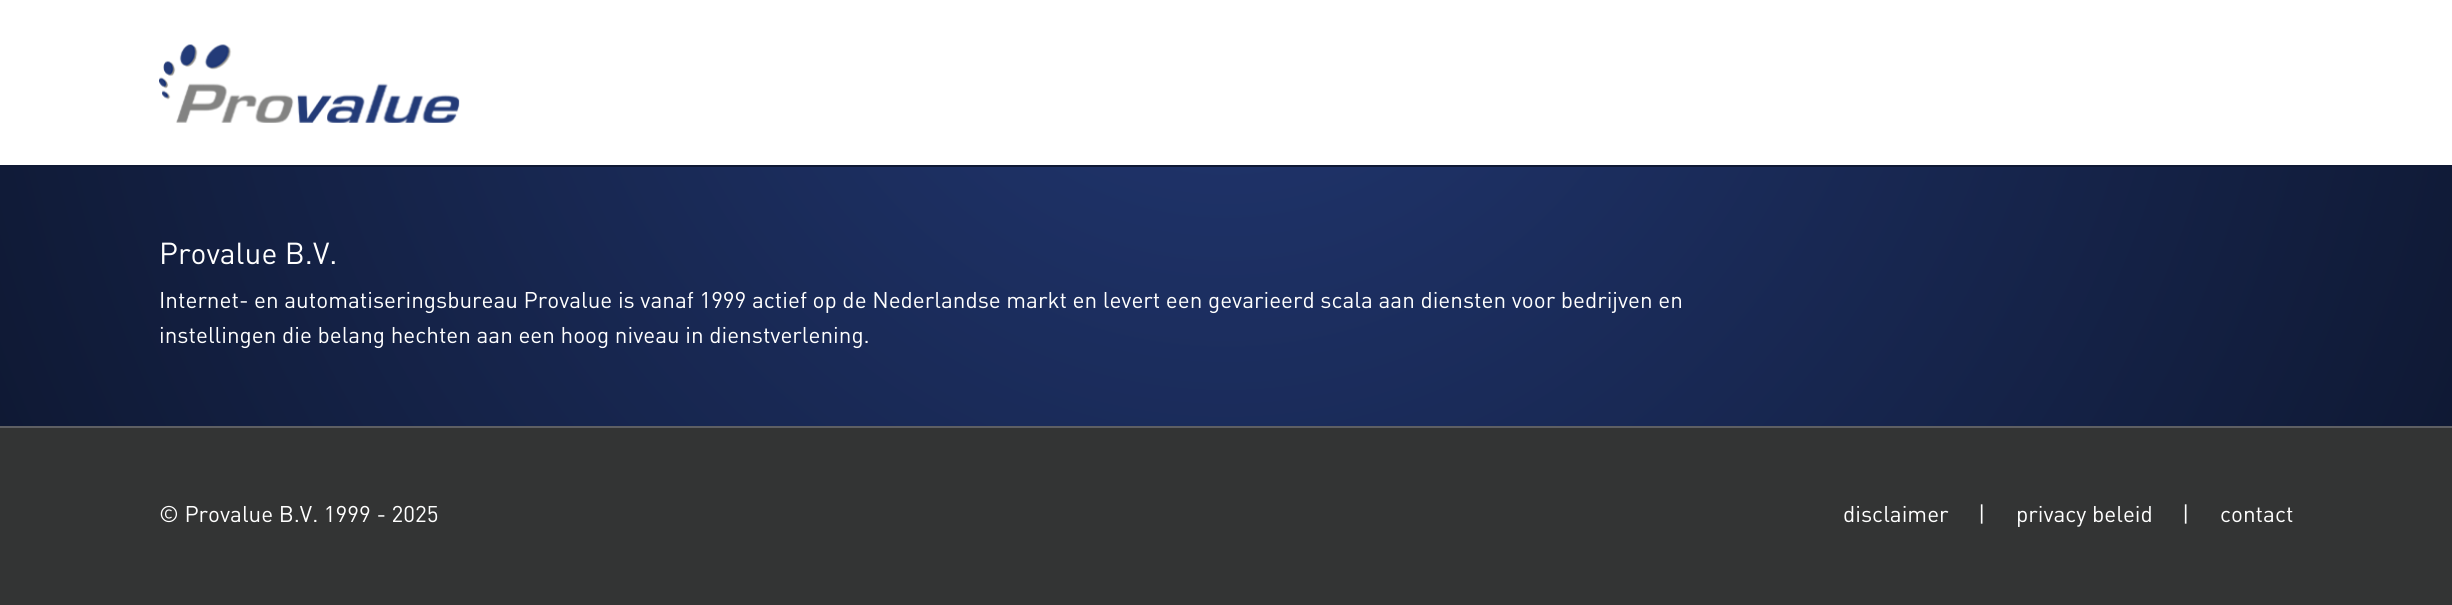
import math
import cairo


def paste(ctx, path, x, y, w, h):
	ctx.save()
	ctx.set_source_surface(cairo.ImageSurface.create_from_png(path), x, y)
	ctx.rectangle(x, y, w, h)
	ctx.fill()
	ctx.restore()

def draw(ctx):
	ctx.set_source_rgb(1, 1, 1)
	ctx.paint()
	ctx.set_source_rgb(0.059, 0.098, 0.204)
	ctx.rectangle(0, 165, 2452, 2)
	ctx.fill()
	paste(ctx, 'media/1.png', 159, 44, 301, 79)
	gradient = cairo.RadialGradient(1226, -109, 0, 1226, -109, 1338)
	gradient.add_color_stop_rgba(0, 0.133, 0.22, 0.455, 1)
	gradient.add_color_stop_rgba(1, 0.059, 0.098, 0.204, 1)
	ctx.set_source(gradient)
	ctx.rectangle(0, 167, 2452, 259)
	ctx.fill()
	ctx.select_font_face('DIN')
	ctx.set_font_size(30)
	ctx.set_source_rgb(1, 1, 1)
	ctx.move_to(159, 264)
	ctx.show_text('Provalue B.V.')
	ctx.set_font_size(22.5)
	ctx.move_to(159, 308)
	ctx.show_text('Internet- en automatiseringsbureau Provalue is vanaf 1999 actief op de Nederlandse markt en levert een gevarieerd scala aan diensten voor bedrijven en')
	ctx.move_to(159, 343)
	ctx.show_text('instellingen die belang hechten aan een hoog niveau in dienstverlening.')
	ctx.set_source_rgb(0.2, 0.204, 0.204)
	ctx.rectangle(0, 428, 2452, 177)
	ctx.fill()
	ctx.set_source_rgb(0.369, 0.373, 0.388)
	ctx.rectangle(0, 426, 2452, 2)
	ctx.fill()
	ctx.set_source_rgb(1, 1, 1)
	for x, y, s in [
		(159, 522, '© Provalue B.V. 1999 - 2025'),
		(1843, 522, 'disclaimer'),
		(1978, 522, '|'),
		(2016, 522, 'privacy beleid'),
		(2182, 522, '|'),
		(2220, 522, 'contact'),
	]:
		ctx.move_to(x, y)
		ctx.show_text(s)


surface = cairo.ImageSurface(cairo.FORMAT_RGB24, 2452, 605)
ctx = cairo.Context(surface)
options = cairo.FontOptions()
options.set_hint_metrics(cairo.HINT_METRICS_OFF)
options.set_hint_style(cairo.HINT_STYLE_NONE)
ctx.set_font_options(options)
ctx.set_miter_limit(4)
draw(ctx)
surface.write_to_png('image.png')
